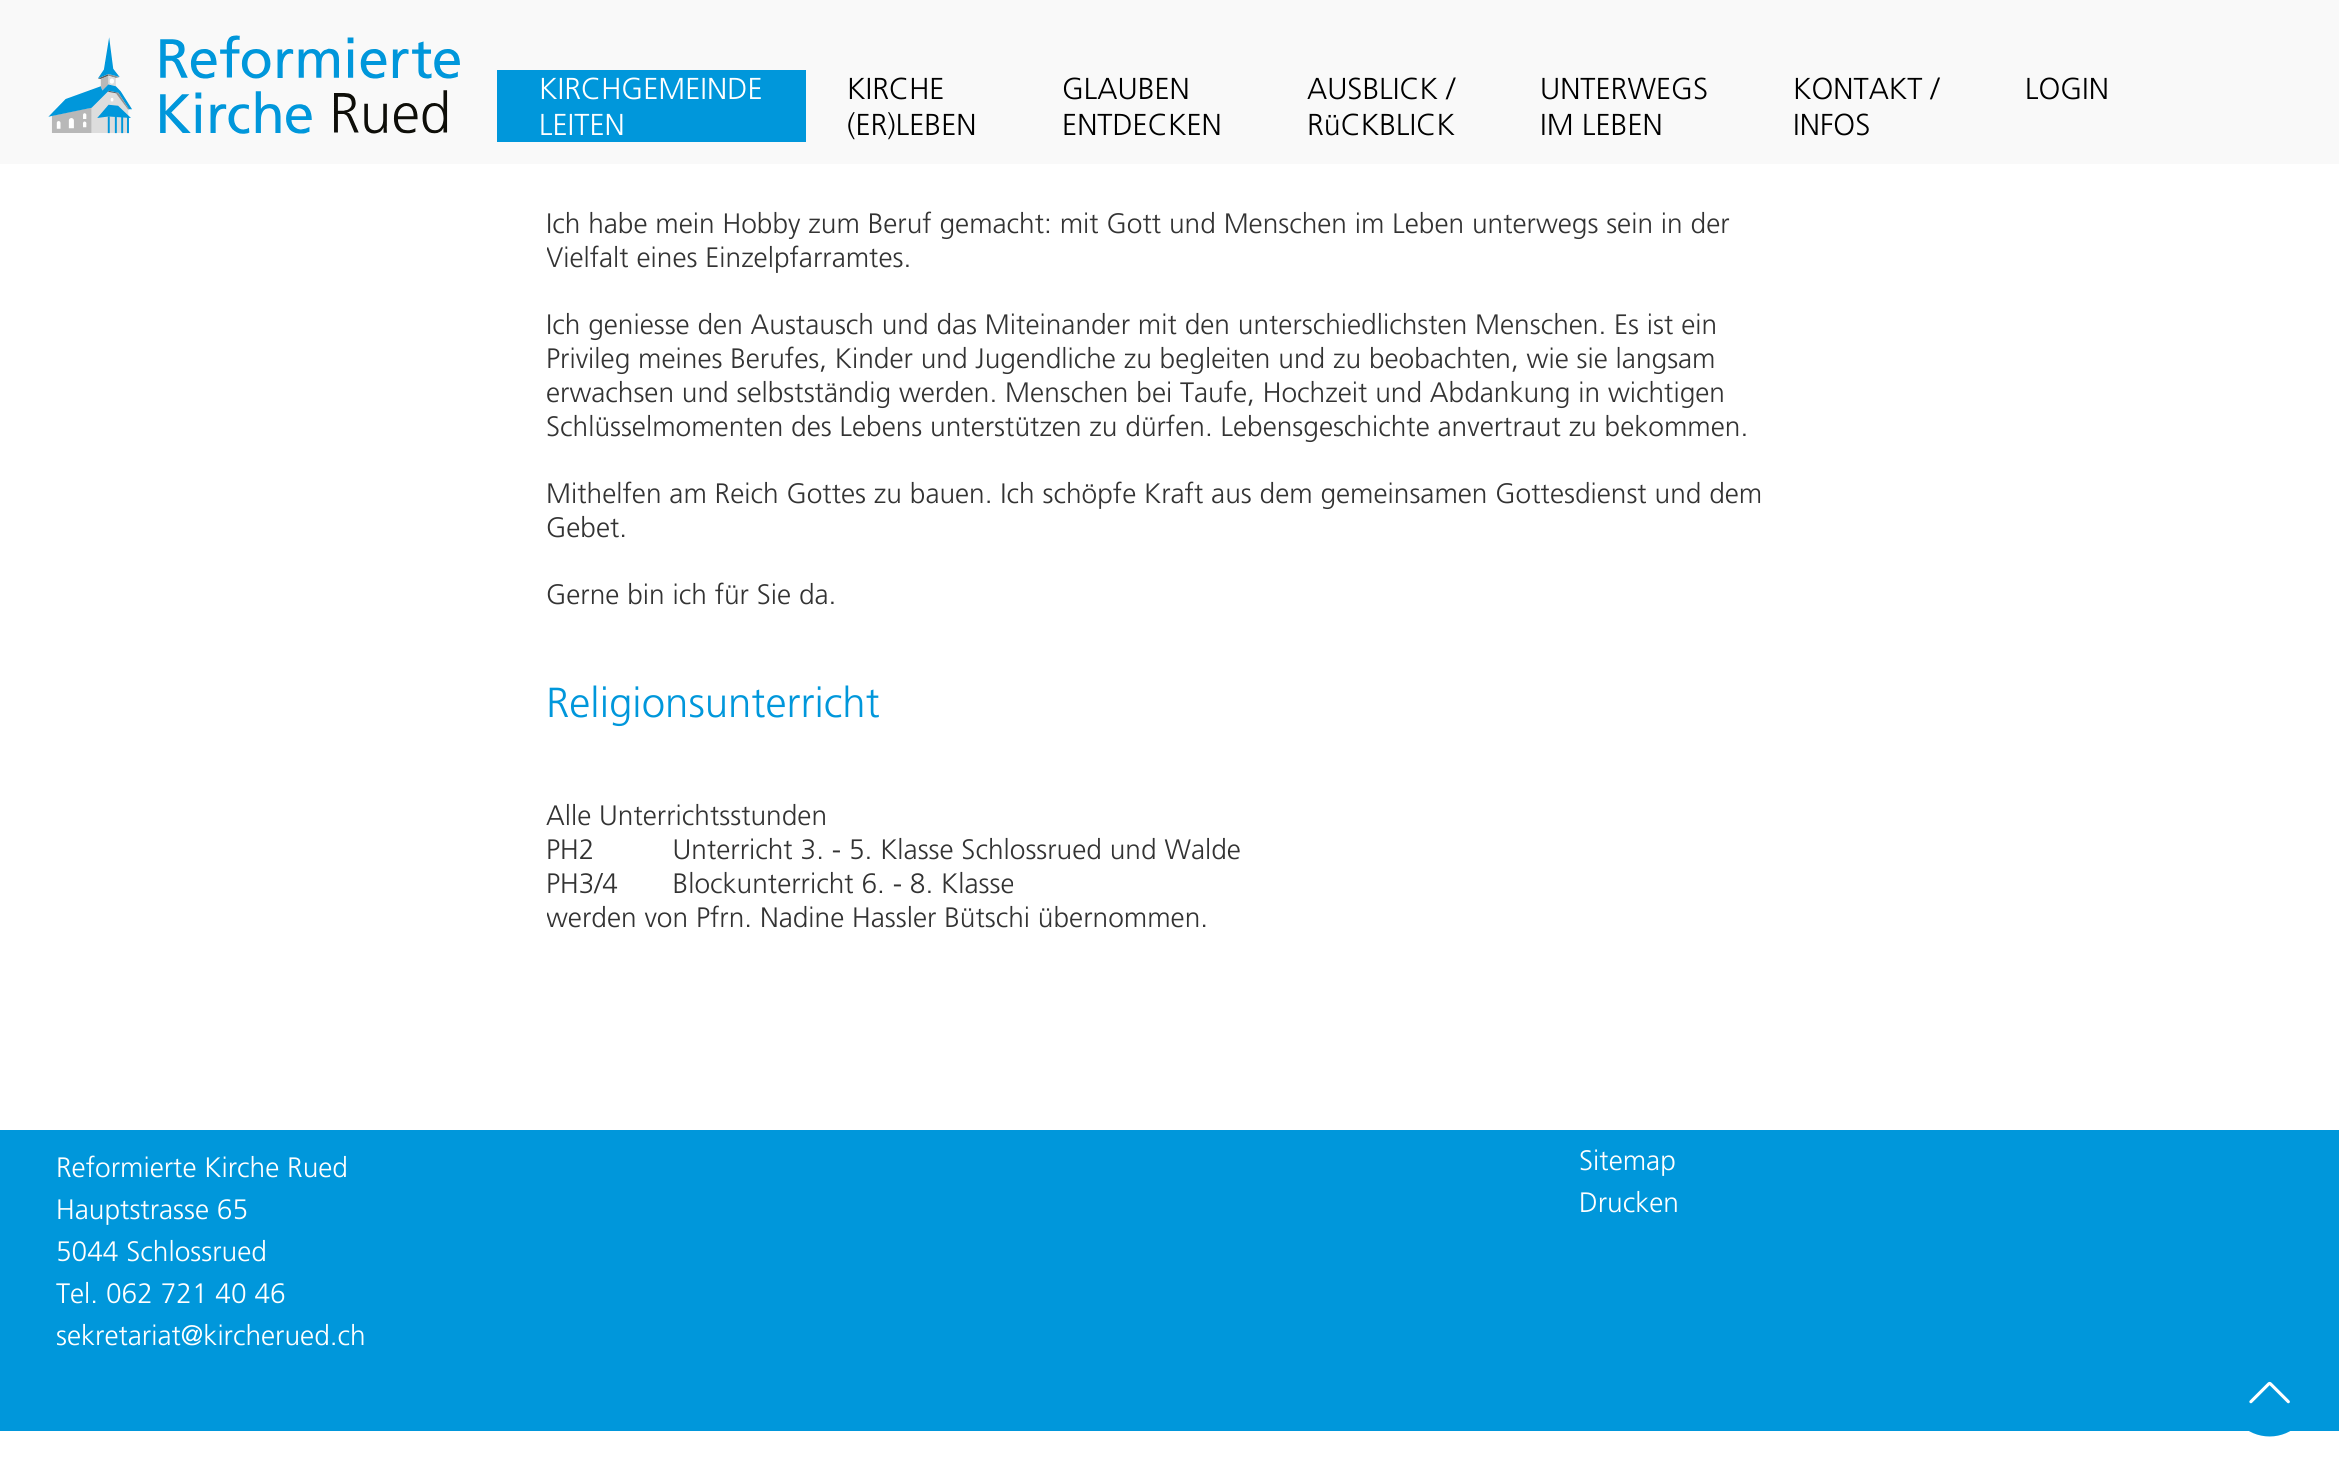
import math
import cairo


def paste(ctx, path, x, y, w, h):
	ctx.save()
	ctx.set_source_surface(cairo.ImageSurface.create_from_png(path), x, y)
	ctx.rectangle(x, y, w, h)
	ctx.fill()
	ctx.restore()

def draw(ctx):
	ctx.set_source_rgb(1, 1, 1)
	ctx.paint()
	ctx.set_source_rgb(0.973, 0.973, 0.973)
	ctx.rectangle(0, 0, 2339, 164)
	ctx.fill()
	paste(ctx, 'media/1.png', 48, 35, 412, 99)
	ctx.set_source_rgb(0, 0.592, 0.859)
	ctx.rectangle(497, 70, 309, 72)
	ctx.fill()
	ctx.select_font_face('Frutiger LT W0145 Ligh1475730 Light')
	ctx.set_font_size(30.25)
	ctx.set_source_rgb(1, 1, 1)
	ctx.move_to(539, 99)
	ctx.show_text('KIRCHGEMEINDE')
	ctx.move_to(539, 135)
	ctx.show_text('LEITEN')
	ctx.set_source_rgb(0, 0, 0)
	for x, y, s in [
		(847, 99, 'KIRCHE'),
		(847, 135, '(ER)LEBEN'),
		(1062, 99, 'GLAUBEN'),
		(1062, 135, 'ENTDECKEN'),
		(1307, 99, 'AUSBLICK /'),
		(1307, 135, 'RüCKBLICK'),
		(1540, 99, 'UNTERWEGS'),
		(1540, 135, 'IM LEBEN'),
		(1793, 99, 'KONTAKT /'),
		(1793, 135, 'INFOS'),
		(2025, 99, 'LOGIN'),
	]:
		ctx.move_to(x, y)
		ctx.show_text(s)
	ctx.set_font_size(28.1)
	ctx.set_source_rgb(0.2, 0.2, 0.2)
	ctx.move_to(546, 233)
	ctx.show_text('Ich habe mein Hobby zum Beruf gemacht: mit Gott und Menschen im Leben unterwegs sein in der')
	ctx.save()
	ctx.rectangle(547, 5, 1246, 661)
	ctx.clip()
	ctx.move_to(546, 267)
	ctx.show_text('Vielfalt eines Einzelpfarramtes.')
	ctx.restore()
	for x, y, s in [
		(546, 334, 'Ich geniesse den Austausch und das Miteinander mit den unterschiedlichsten Menschen. Es ist ein'),
		(546, 368, 'Privileg meines Berufes, Kinder und Jugendliche zu begleiten und zu beobachten, wie sie langsam'),
		(546, 402, 'erwachsen und selbstständig werden. Menschen bei Taufe, Hochzeit und Abdankung in wichtigen'),
		(546, 436, 'Schlüsselmomenten des Lebens unterstützen zu dürfen. Lebensgeschichte anvertraut zu bekommen.'),
		(546, 503, 'Mithelfen am Reich Gottes zu bauen. Ich schöpfe Kraft aus dem gemeinsamen Gottesdienst und dem'),
		(546, 537, 'Gebet.'),
		(546, 604, 'Gerne bin ich für Sie da.'),
	]:
		ctx.move_to(x, y)
		ctx.show_text(s)
	ctx.set_font_size(42)
	ctx.set_source_rgb(0, 0.592, 0.859)
	ctx.move_to(546, 717)
	ctx.show_text('Religionsunterricht')
	ctx.set_font_size(28.1)
	ctx.set_source_rgb(0.2, 0.2, 0.2)
	for x, y, s in [
		(546, 825, 'Alle Unterrichtsstunden'),
		(546, 859, 'PH2          Unterricht 3. - 5. Klasse Schlossrued und Walde'),
		(546, 893, 'PH3/4       Blockunterricht 6. - 8. Klasse'),
	]:
		ctx.move_to(x, y)
		ctx.show_text(s)
	ctx.save()
	ctx.rectangle(547, 765, 1246, 223)
	ctx.clip()
	ctx.move_to(546, 927)
	ctx.show_text('werden von Pfrn. Nadine Hassler Bütschi übernommen.')
	ctx.restore()
	ctx.set_source_rgb(0, 0.592, 0.859)
	ctx.rectangle(0, 1130, 2339, 301)
	ctx.fill()
	ctx.set_source_rgb(1, 1, 1)
	for x, y, s in [
		(56, 1177, 'Reformierte Kirche Rued'),
		(56, 1219, 'Hauptstrasse 65'),
		(56, 1261, '5044 Schlossrued'),
		(56, 1303, 'Tel. 062 721 40 46'),
		(56, 1345, 'sekretariat@kircherued.ch'),
		(1579, 1170, 'Sitemap'),
		(1579, 1212, 'Drucken'),
	]:
		ctx.move_to(x, y)
		ctx.show_text(s)
	paste(ctx, 'media/2.png', 2249, 1381, 42, 56)


surface = cairo.ImageSurface(cairo.FORMAT_RGB24, 2339, 1464)
ctx = cairo.Context(surface)
options = cairo.FontOptions()
options.set_hint_metrics(cairo.HINT_METRICS_OFF)
options.set_hint_style(cairo.HINT_STYLE_NONE)
ctx.set_font_options(options)
ctx.set_miter_limit(4)
draw(ctx)
surface.write_to_png('image.png')
